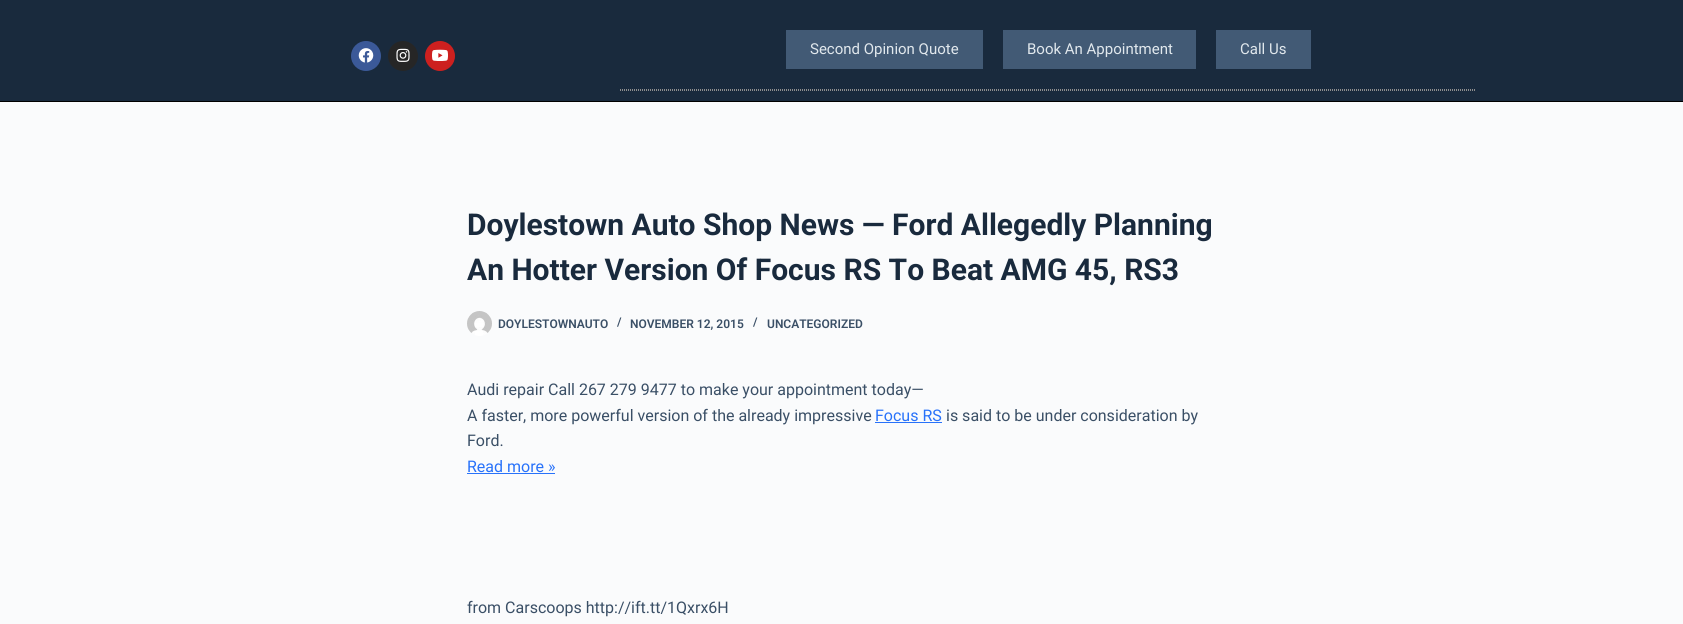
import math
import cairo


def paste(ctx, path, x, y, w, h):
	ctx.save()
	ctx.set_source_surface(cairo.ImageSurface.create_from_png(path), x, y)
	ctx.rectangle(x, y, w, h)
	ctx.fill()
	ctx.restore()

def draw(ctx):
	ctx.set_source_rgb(0.98, 0.984, 0.988)
	ctx.paint()
	ctx.set_source_rgb(0.098, 0.165, 0.239)
	ctx.rectangle(0, 0, 1683, 101)
	ctx.fill()
	ctx.set_source_rgb(0, 0, 0)
	ctx.rectangle(0, 101, 1683, 1)
	ctx.fill()
	ctx.set_source_rgb(0.231, 0.349, 0.596)
	ctx.arc(366, 56, 15, 0, 2 * math.pi)
	ctx.fill()
	paste(ctx, 'media/1.png', 358, 48, 16, 15)
	ctx.set_source_rgb(0.149, 0.149, 0.149)
	ctx.arc(403, 56, 15, 0, 2 * math.pi)
	ctx.fill()
	paste(ctx, 'media/2.png', 396, 48, 14, 14)
	ctx.set_source_rgb(0.804, 0.125, 0.122)
	ctx.arc(440, 56, 15, 0, 2 * math.pi)
	ctx.fill()
	paste(ctx, 'media/3.png', 432, 49, 16, 12)
	ctx.set_source_rgb(0.259, 0.353, 0.459)
	ctx.rectangle(786, 30, 197, 39)
	ctx.fill()
	ctx.select_font_face('Roboto')
	ctx.set_font_size(15)
	ctx.set_source_rgb(0.882, 0.91, 0.929)
	ctx.move_to(810, 54)
	ctx.show_text('Second Opinion Quote')
	ctx.set_source_rgb(0.259, 0.353, 0.459)
	ctx.rectangle(1003, 30, 193, 39)
	ctx.fill()
	ctx.set_source_rgb(0.882, 0.91, 0.929)
	ctx.move_to(1027, 54)
	ctx.show_text('Book An Appointment')
	ctx.set_source_rgb(0.259, 0.353, 0.459)
	ctx.rectangle(1216, 30, 95, 39)
	ctx.fill()
	ctx.set_source_rgb(0.882, 0.91, 0.929)
	ctx.move_to(1240, 54)
	ctx.show_text('Call Us')
	ctx.new_path()
	ctx.move_to(620, 89.5)
	ctx.line_to(1476, 89.5)
	ctx.set_source_rgb(0.557, 0.557, 0.557)
	ctx.set_line_width(1)
	ctx.set_dash([1, 1])
	ctx.stroke()
	ctx.new_path()
	ctx.move_to(620, 90.5)
	ctx.line_to(1476, 90.5)
	ctx.stroke()
	ctx.select_font_face('Roboto', cairo.FONT_SLANT_NORMAL, cairo.FONT_WEIGHT_BOLD)
	ctx.set_font_size(30)
	ctx.set_source_rgb(0.098, 0.165, 0.239)
	ctx.move_to(467, 235)
	ctx.show_text('Doylestown Auto Shop News — Ford Allegedly Planning')
	ctx.move_to(467, 280)
	ctx.show_text('An Hotter Version Of Focus RS To Beat AMG 45, RS3')
	paste(ctx, 'media/4.png', 467, 311, 25, 25)
	ctx.select_font_face('Roboto SemiBold')
	ctx.set_font_size(12)
	ctx.set_source_rgb(0.227, 0.31, 0.4)
	for x, y, s in [
		(498, 328, 'DOYLESTOWNAUTO'),
		(617, 326, '/'),
		(630, 328, 'NOVEMBER 12, 2015'),
		(753, 326, '/'),
		(767, 328, 'UNCATEGORIZED'),
	]:
		ctx.move_to(x, y)
		ctx.show_text(s)
	ctx.select_font_face('Roboto')
	ctx.set_font_size(16)
	ctx.move_to(467, 395)
	ctx.show_text('Audi repair Call 267 279 9477 to make your appointment today—')
	ctx.move_to(467, 421)
	ctx.show_text('A faster, more powerful version of the already impressive')
	ctx.set_source_rgb(0.157, 0.447, 0.98)
	ctx.move_to(875, 421)
	ctx.show_text('Focus RS')
	ctx.rectangle(875, 422, 67, 1)
	ctx.fill()
	ctx.set_source_rgb(0.227, 0.31, 0.4)
	ctx.move_to(946, 421)
	ctx.show_text('is said to be under consideration by')
	ctx.move_to(467, 446)
	ctx.show_text('Ford.')
	ctx.set_source_rgb(0.157, 0.447, 0.98)
	ctx.move_to(467, 472)
	ctx.show_text('Read more »')
	ctx.rectangle(467, 473, 88, 1)
	ctx.fill()
	ctx.set_source_rgb(0.227, 0.31, 0.4)
	ctx.move_to(467, 613)
	ctx.show_text('from Carscoops http://ift.tt/1Qxrx6H')


surface = cairo.ImageSurface(cairo.FORMAT_RGB24, 1683, 624)
ctx = cairo.Context(surface)
options = cairo.FontOptions()
options.set_hint_metrics(cairo.HINT_METRICS_OFF)
options.set_hint_style(cairo.HINT_STYLE_NONE)
ctx.set_font_options(options)
ctx.set_miter_limit(4)
draw(ctx)
surface.write_to_png('image.png')
